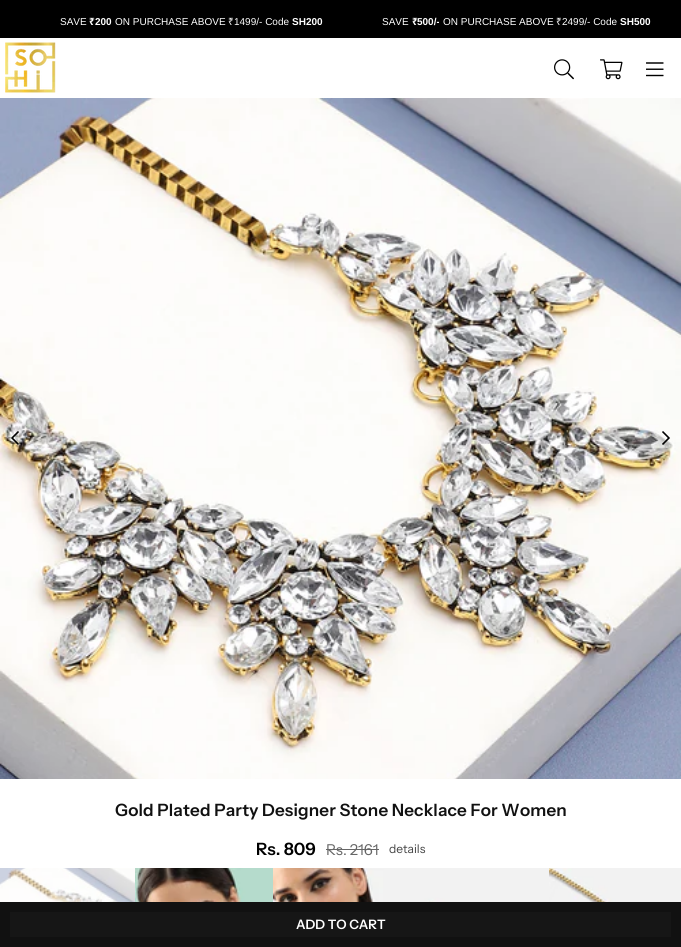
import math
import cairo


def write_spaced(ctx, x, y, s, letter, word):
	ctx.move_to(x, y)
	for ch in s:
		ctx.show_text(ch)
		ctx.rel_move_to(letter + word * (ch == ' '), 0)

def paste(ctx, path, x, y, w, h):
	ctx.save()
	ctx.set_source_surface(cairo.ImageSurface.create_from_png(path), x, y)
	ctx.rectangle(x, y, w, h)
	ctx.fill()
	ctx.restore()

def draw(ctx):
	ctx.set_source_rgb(1, 1, 1)
	ctx.paint()
	ctx.set_source_rgb(0, 0, 0)
	ctx.rectangle(0, 0, 681, 38)
	ctx.fill()
	ctx.select_font_face('Liberation Sans')
	ctx.set_font_size(10)
	ctx.set_source_rgb(1, 1, 1)
	ctx.move_to(60, 25)
	ctx.show_text('SAVE')
	ctx.select_font_face('Noto Sans', cairo.FONT_SLANT_NORMAL, cairo.FONT_WEIGHT_BOLD)
	ctx.move_to(89, 25)
	ctx.show_text('₹')
	ctx.select_font_face('Liberation Sans', cairo.FONT_SLANT_NORMAL, cairo.FONT_WEIGHT_BOLD)
	ctx.move_to(95, 25)
	ctx.show_text('200')
	ctx.select_font_face('Liberation Sans')
	ctx.move_to(115, 25)
	ctx.show_text('ON PURCHASE ABOVE')
	ctx.select_font_face('Noto Sans')
	ctx.move_to(228, 25)
	ctx.show_text('₹')
	ctx.select_font_face('Liberation Sans')
	ctx.move_to(234, 25)
	ctx.show_text('1499/- Code')
	ctx.select_font_face('Liberation Sans', cairo.FONT_SLANT_NORMAL, cairo.FONT_WEIGHT_BOLD)
	ctx.move_to(292, 25)
	ctx.show_text('SH200')
	ctx.select_font_face('Liberation Sans')
	ctx.move_to(382, 25)
	ctx.show_text('SAVE')
	ctx.select_font_face('Noto Sans', cairo.FONT_SLANT_NORMAL, cairo.FONT_WEIGHT_BOLD)
	ctx.move_to(412, 25)
	ctx.show_text('₹')
	ctx.select_font_face('Liberation Sans', cairo.FONT_SLANT_NORMAL, cairo.FONT_WEIGHT_BOLD)
	ctx.move_to(417, 25)
	ctx.show_text('500/-')
	ctx.select_font_face('Liberation Sans')
	ctx.move_to(443, 25)
	ctx.show_text('ON PURCHASE ABOVE')
	ctx.select_font_face('Noto Sans')
	ctx.move_to(556, 25)
	ctx.show_text('₹')
	ctx.select_font_face('Liberation Sans')
	ctx.move_to(562, 25)
	ctx.show_text('2499/- Code')
	ctx.select_font_face('Liberation Sans', cairo.FONT_SLANT_NORMAL, cairo.FONT_WEIGHT_BOLD)
	ctx.move_to(620, 25)
	ctx.show_text('SH500')
	paste(ctx, 'media/1.png', 5, 42, 51, 51)
	paste(ctx, 'media/2.png', 554, 59, 20, 21)
	paste(ctx, 'media/3.png', 600, 59, 23, 21)
	paste(ctx, 'media/4.png', 646, 62, 18, 15)
	paste(ctx, 'media/5.png', 0, 98, 681, 681)
	paste(ctx, 'media/6.png', 11, 431, 8, 14)
	paste(ctx, 'media/7.png', 662, 431, 8, 14)
	ctx.select_font_face('Instrument Sans SemiBold')
	ctx.set_font_size(17)
	ctx.set_source_rgb(0.067, 0.067, 0.067)
	write_spaced(ctx, 115, 816, 'Gold Plated Party Designer Stone Necklace For Women', 0.17, 0)
	ctx.set_source_rgb(0, 0, 0)
	ctx.move_to(256, 855)
	ctx.show_text('Rs. 809')
	ctx.select_font_face('Instrument Sans')
	ctx.set_font_size(15)
	ctx.set_source_rgb(0.4, 0.4, 0.4)
	ctx.move_to(326, 855)
	ctx.show_text('Rs. 2161')
	ctx.rectangle(326, 849, 53, 1)
	ctx.fill()
	ctx.set_font_size(12)
	ctx.set_source_rgb(0.267, 0.267, 0.267)
	ctx.move_to(389, 853)
	ctx.show_text('details')
	paste(ctx, 'media/8.png', 0, 868, 135, 34)
	paste(ctx, 'media/9.png', 135, 868, 138, 34)
	paste(ctx, 'media/10.png', 273, 868, 138, 34)
	paste(ctx, 'media/11.png', 411, 868, 138, 34)
	paste(ctx, 'media/12.png', 549, 868, 132, 34)
	ctx.set_source_rgb(0.067, 0.067, 0.067)
	ctx.rectangle(0, 902, 681, 45)
	ctx.fill()
	ctx.set_source_rgb(0.086, 0.086, 0.086)
	ctx.rectangle(10, 912, 661, 25)
	ctx.fill()
	ctx.select_font_face('Instrument Sans SemiBold')
	ctx.set_font_size(13)
	ctx.set_source_rgb(1, 1, 1)
	ctx.move_to(296, 929)
	ctx.show_text('ADD TO CART')


surface = cairo.ImageSurface(cairo.FORMAT_RGB24, 681, 947)
ctx = cairo.Context(surface)
options = cairo.FontOptions()
options.set_hint_metrics(cairo.HINT_METRICS_OFF)
options.set_hint_style(cairo.HINT_STYLE_NONE)
ctx.set_font_options(options)
ctx.set_miter_limit(4)
draw(ctx)
surface.write_to_png('image.png')
